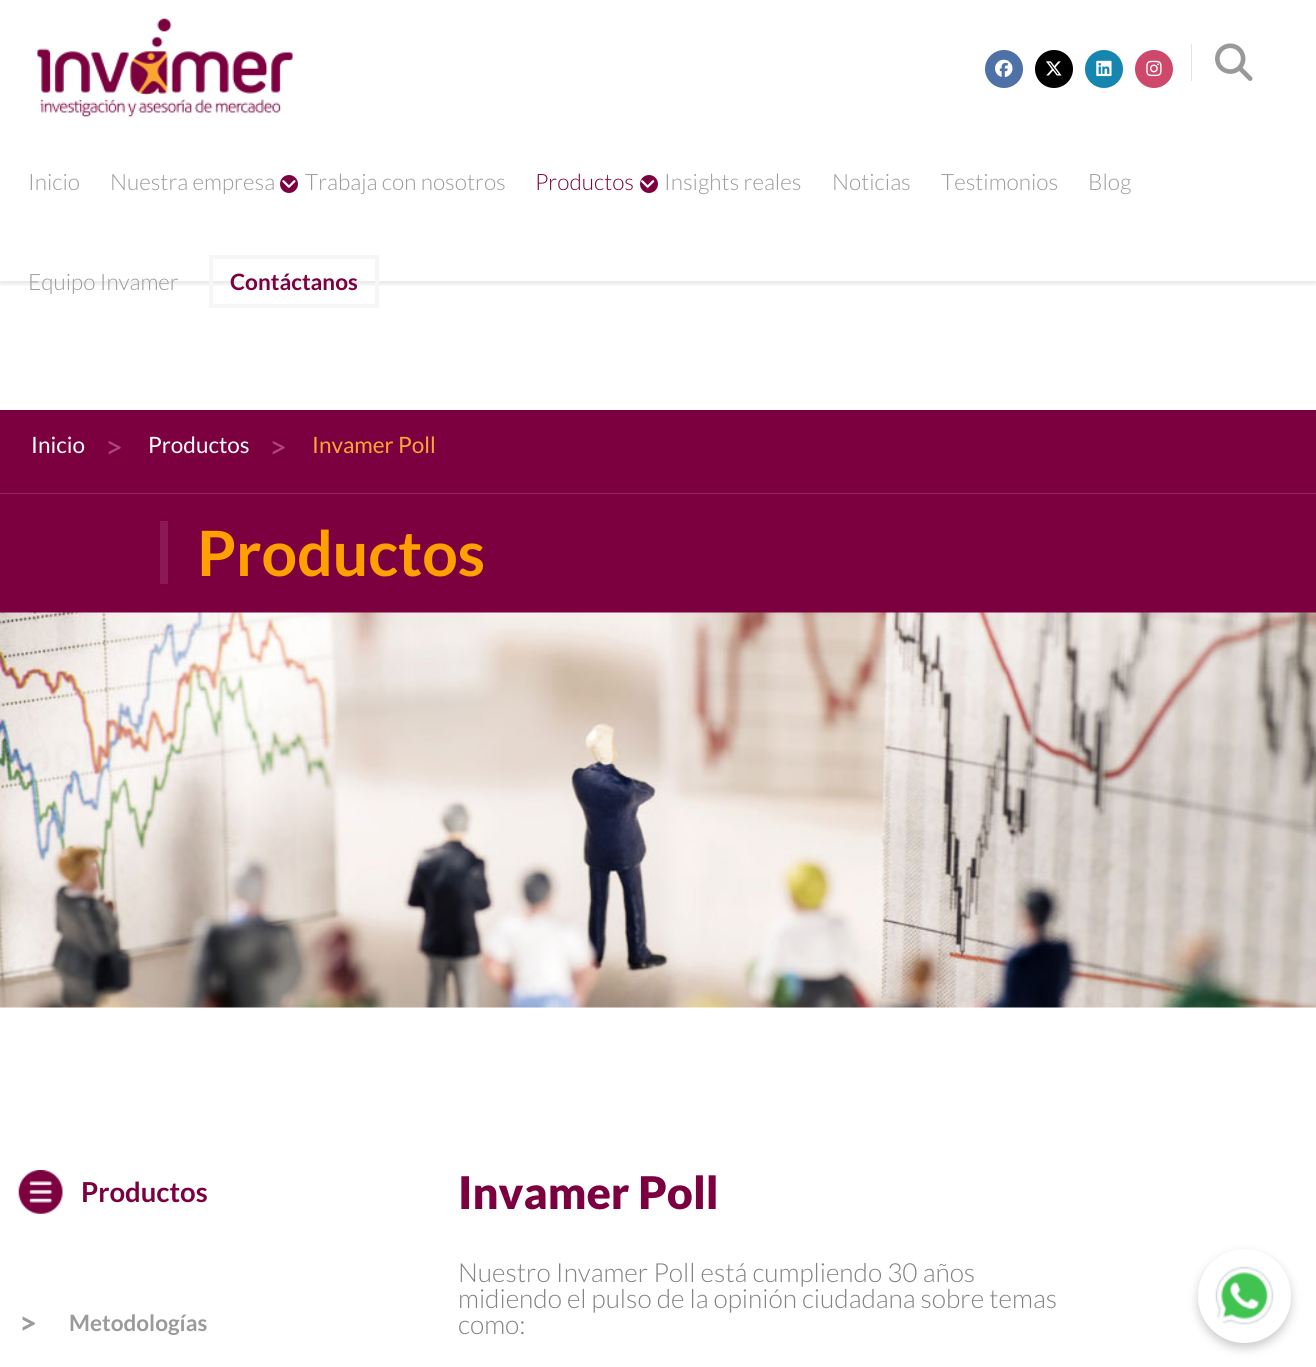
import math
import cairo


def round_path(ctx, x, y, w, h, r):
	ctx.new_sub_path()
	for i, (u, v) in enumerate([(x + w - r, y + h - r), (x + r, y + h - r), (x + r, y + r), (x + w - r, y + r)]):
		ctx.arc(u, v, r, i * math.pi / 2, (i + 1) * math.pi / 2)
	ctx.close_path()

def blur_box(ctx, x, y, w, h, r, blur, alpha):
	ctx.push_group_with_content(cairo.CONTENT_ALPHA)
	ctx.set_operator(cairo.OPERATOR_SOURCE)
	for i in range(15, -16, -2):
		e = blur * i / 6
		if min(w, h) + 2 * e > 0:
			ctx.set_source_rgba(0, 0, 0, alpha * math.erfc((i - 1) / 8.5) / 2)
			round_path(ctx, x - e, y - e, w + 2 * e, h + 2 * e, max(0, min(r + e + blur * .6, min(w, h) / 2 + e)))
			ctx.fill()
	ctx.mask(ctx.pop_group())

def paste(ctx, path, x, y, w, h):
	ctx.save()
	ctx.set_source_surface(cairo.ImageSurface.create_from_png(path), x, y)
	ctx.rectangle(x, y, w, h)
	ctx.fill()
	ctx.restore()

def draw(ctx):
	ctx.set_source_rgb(1, 1, 1)
	ctx.paint()
	ctx.save()
	ctx.rectangle(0, 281, 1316, 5)
	ctx.clip()
	ctx.set_source_rgb(0, 0, 0)
	blur_box(ctx, 0, 3, 1316, 281, 0, 2.5, 0.1)
	ctx.restore()
	paste(ctx, 'media/1.png', 37, 18, 256, 99)
	ctx.set_source_rgb(0.306, 0.443, 0.659)
	ctx.arc(1004, 69, 19, 0, 2 * math.pi)
	ctx.fill()
	paste(ctx, 'media/2.png', 995, 59, 18, 18)
	ctx.set_source_rgb(0, 0, 0)
	ctx.arc(1054, 69, 19, 0, 2 * math.pi)
	ctx.fill()
	paste(ctx, 'media/3.png', 1046, 61, 16, 15)
	ctx.set_source_rgb(0.086, 0.525, 0.69)
	ctx.arc(1104, 69, 19, 0, 2 * math.pi)
	ctx.fill()
	paste(ctx, 'media/4.png', 1096, 60, 16, 17)
	ctx.set_source_rgb(0.804, 0.282, 0.42)
	ctx.arc(1154, 69, 19, 0, 2 * math.pi)
	ctx.fill()
	paste(ctx, 'media/5.png', 1146, 60, 16, 17)
	ctx.set_source_rgb(0.886, 0.886, 0.886)
	ctx.rectangle(1191, 44, 1, 37)
	ctx.fill()
	paste(ctx, 'media/6.png', 1215, 43, 38, 38)
	ctx.select_font_face('Lato Light')
	ctx.set_font_size(22.5)
	ctx.set_source_rgb(0.604, 0.604, 0.604)
	ctx.move_to(28, 190)
	ctx.show_text('Inicio')
	ctx.move_to(110, 190)
	ctx.show_text('Nuestra empresa')
	ctx.set_source_rgb(0.486, 0, 0.251)
	ctx.new_path()
	ctx.arc(289, 184, 9, 0, 2 * math.pi)
	ctx.fill()
	paste(ctx, 'media/7.png', 282, 180, 14, 8)
	ctx.set_source_rgb(0.604, 0.604, 0.604)
	ctx.move_to(305, 190)
	ctx.show_text('Trabaja con nosotros')
	ctx.set_source_rgb(0.486, 0, 0.251)
	ctx.move_to(535, 190)
	ctx.show_text('Productos')
	ctx.new_path()
	ctx.arc(649, 184, 9, 0, 2 * math.pi)
	ctx.fill()
	paste(ctx, 'media/8.png', 641, 180, 14, 8)
	ctx.set_source_rgb(0.604, 0.604, 0.604)
	for x, y, s in [
		(664, 190, 'Insights reales'),
		(832, 190, 'Noticias'),
		(941, 190, 'Testimonios'),
		(1088, 190, 'Blog'),
		(28, 290, 'Equipo Invamer'),
	]:
		ctx.move_to(x, y)
		ctx.show_text(s)
	ctx.rectangle(211, 257, 166, 49)
	ctx.set_source_rgb(0.961, 0.961, 0.961)
	ctx.set_line_width(4)
	ctx.stroke()
	ctx.select_font_face('Lato', cairo.FONT_SLANT_NORMAL, cairo.FONT_WEIGHT_BOLD)
	ctx.set_source_rgb(0.486, 0, 0.251)
	ctx.move_to(230, 290)
	ctx.show_text('Contáctanos')
	ctx.rectangle(0, 410, 1316, 83)
	ctx.fill()
	ctx.set_source_rgb(0.565, 0.165, 0.369)
	ctx.rectangle(0, 493, 1316, 1)
	ctx.fill()
	ctx.select_font_face('Lato')
	ctx.set_source_rgb(1, 1, 1)
	ctx.move_to(31, 453)
	ctx.show_text('Inicio')
	ctx.set_font_size(31)
	ctx.set_source_rgb(0.69, 0.275, 0.486)
	ctx.move_to(105, 458)
	ctx.show_text('>')
	ctx.set_font_size(22.5)
	ctx.set_source_rgb(1, 1, 1)
	ctx.move_to(148, 453)
	ctx.show_text('Productos')
	ctx.set_font_size(31)
	ctx.set_source_rgb(0.69, 0.275, 0.486)
	ctx.move_to(269, 458)
	ctx.show_text('>')
	ctx.set_font_size(22.5)
	ctx.set_source_rgb(0.98, 0.651, 0.2)
	ctx.move_to(312, 453)
	ctx.show_text('Invamer Poll')
	ctx.set_source_rgb(0.486, 0, 0.251)
	ctx.rectangle(0, 494, 1316, 119)
	ctx.fill()
	ctx.set_source_rgb(0.541, 0.098, 0.329)
	ctx.rectangle(160, 521, 8, 63)
	ctx.fill()
	ctx.select_font_face('Lato', cairo.FONT_SLANT_NORMAL, cairo.FONT_WEIGHT_BOLD)
	ctx.set_font_size(62.5)
	ctx.set_source_rgb(1, 0.627, 0)
	ctx.move_to(197, 576)
	ctx.show_text('Productos')
	paste(ctx, 'media/9.png', 0, 612, 1316, 396)
	paste(ctx, 'media/10.png', 18, 1170, 45, 44)
	ctx.set_font_size(27.5)
	ctx.set_source_rgb(0.486, 0, 0.251)
	ctx.move_to(81, 1202)
	ctx.show_text('Productos')
	ctx.set_font_size(31)
	ctx.set_source_rgb(0.604, 0.604, 0.604)
	ctx.move_to(19, 1334)
	ctx.show_text('>')
	ctx.set_font_size(22.5)
	ctx.move_to(69, 1331)
	ctx.show_text('Metodologías')
	ctx.select_font_face('Lato Black')
	ctx.set_font_size(45)
	ctx.set_source_rgb(0.486, 0, 0.251)
	ctx.move_to(458, 1209)
	ctx.show_text('Invamer Poll')
	ctx.select_font_face('Lato Light')
	ctx.set_font_size(26.25)
	ctx.set_source_rgb(0.51, 0.51, 0.51)
	for x, y, s in [
		(458, 1282, 'Nuestro Invamer Poll está cumpliendo 30 años'),
		(458, 1308, 'midiendo el pulso de la opinión ciudadana sobre temas'),
		(458, 1334, 'como:'),
	]:
		ctx.move_to(x, y)
		ctx.show_text(s)
	ctx.set_source_rgb(0, 0, 0)
	blur_box(ctx, 1198, 1254, 93, 94, 46.5, 5, 0.2)
	ctx.set_source_rgb(1, 1, 1)
	round_path(ctx, 1198, 1249, 93, 94, 46.5)
	ctx.fill()
	paste(ctx, 'media/11.png', 1215, 1266, 59, 59)


surface = cairo.ImageSurface(cairo.FORMAT_RGB24, 1316, 1367)
ctx = cairo.Context(surface)
options = cairo.FontOptions()
options.set_hint_metrics(cairo.HINT_METRICS_OFF)
options.set_hint_style(cairo.HINT_STYLE_NONE)
ctx.set_font_options(options)
ctx.set_miter_limit(4)
draw(ctx)
surface.write_to_png('image.png')
